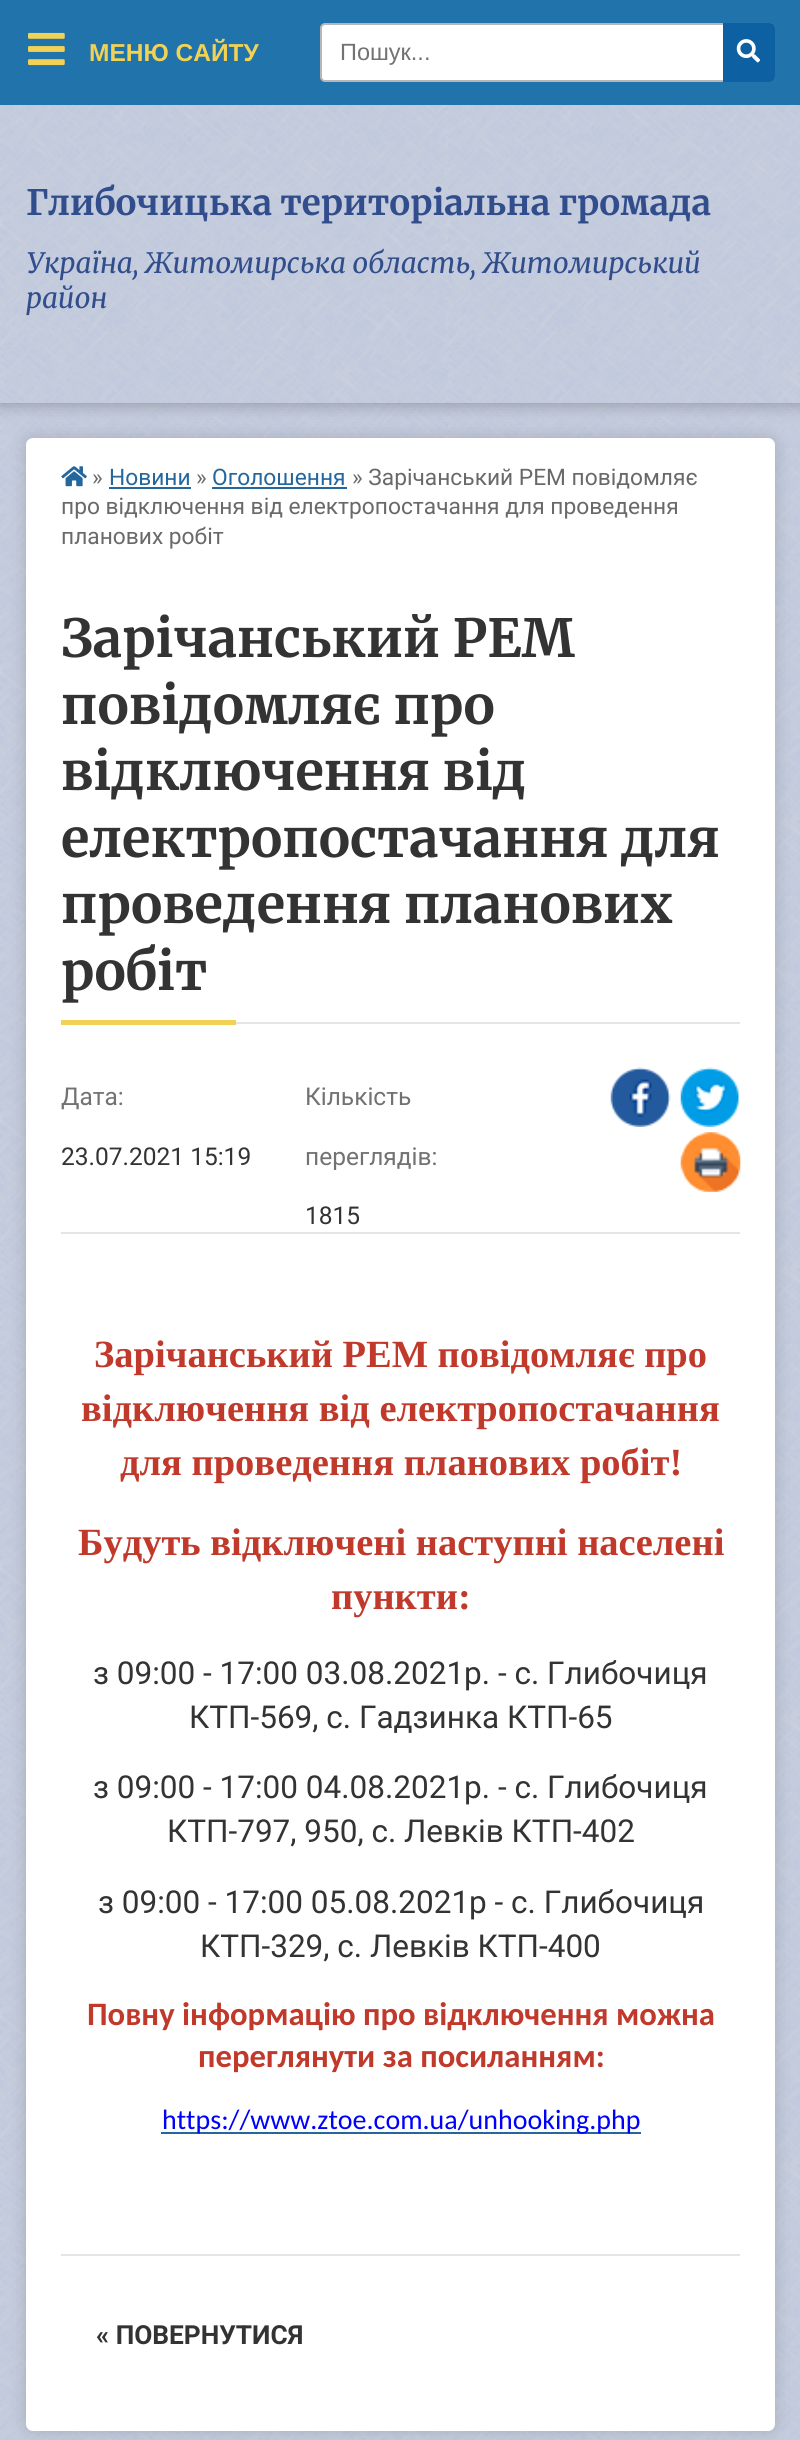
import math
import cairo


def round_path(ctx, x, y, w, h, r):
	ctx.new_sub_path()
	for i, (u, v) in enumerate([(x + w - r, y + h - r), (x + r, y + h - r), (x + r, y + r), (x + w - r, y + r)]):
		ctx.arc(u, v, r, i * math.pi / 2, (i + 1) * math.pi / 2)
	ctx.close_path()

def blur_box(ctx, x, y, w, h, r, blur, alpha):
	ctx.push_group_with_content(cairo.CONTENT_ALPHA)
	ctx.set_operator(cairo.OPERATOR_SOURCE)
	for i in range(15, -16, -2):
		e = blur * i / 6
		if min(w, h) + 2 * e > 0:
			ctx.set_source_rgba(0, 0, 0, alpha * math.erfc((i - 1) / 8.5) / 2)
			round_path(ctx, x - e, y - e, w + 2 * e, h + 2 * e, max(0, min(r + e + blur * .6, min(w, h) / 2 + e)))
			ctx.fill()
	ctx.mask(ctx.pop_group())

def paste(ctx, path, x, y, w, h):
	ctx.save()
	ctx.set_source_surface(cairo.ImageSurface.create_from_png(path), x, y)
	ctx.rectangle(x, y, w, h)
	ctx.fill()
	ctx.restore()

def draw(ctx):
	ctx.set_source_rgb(0.706, 0.761, 0.886)
	ctx.paint()
	paste(ctx, 'media/1.png', 0, 105, 800, 2335)
	ctx.set_source_rgb(0, 0, 0)
	blur_box(ctx, 26, 438, 749, 1993, 7, 9, 0.15)
	ctx.set_source_rgb(1, 1, 1)
	round_path(ctx, 26, 438, 749, 1993, 7)
	ctx.fill()
	ctx.save()
	ctx.set_fill_rule(cairo.FILL_RULE_EVEN_ODD)
	ctx.new_path()
	ctx.move_to(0, 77)
	ctx.line_to(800, 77)
	ctx.line_to(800, 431)
	ctx.line_to(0, 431)
	ctx.close_path()
	ctx.move_to(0, 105)
	ctx.line_to(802, 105)
	ctx.line_to(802, 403)
	ctx.line_to(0, 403)
	ctx.close_path()
	ctx.clip()
	ctx.set_source_rgb(0, 0, 0)
	blur_box(ctx, 0, 105, 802, 298, 0, 9, 0.3)
	ctx.restore()
	ctx.set_source_rgb(0.125, 0.451, 0.671)
	ctx.rectangle(0, 0, 800, 105)
	ctx.fill()
	paste(ctx, 'media/2.png', 28, 32, 37, 34)
	ctx.select_font_face('Liberation Sans', cairo.FONT_SLANT_NORMAL, cairo.FONT_WEIGHT_BOLD)
	ctx.set_font_size(24.5)
	ctx.set_source_rgb(0.949, 0.824, 0.329)
	ctx.move_to(89, 61)
	ctx.show_text('МЕНЮ САЙТУ')
	paste(ctx, 'media/3.png', 61, 466, 26, 21)
	ctx.select_font_face('Roboto')
	ctx.set_font_size(22.75)
	ctx.set_source_rgb(0.412, 0.412, 0.412)
	ctx.move_to(92, 485)
	ctx.show_text('»')
	ctx.set_source_rgb(0.145, 0.4, 0.612)
	ctx.move_to(109, 485)
	ctx.show_text('Новини')
	ctx.rectangle(109, 487, 82, 2)
	ctx.fill()
	ctx.set_source_rgb(0.412, 0.412, 0.412)
	ctx.move_to(196, 485)
	ctx.show_text('»')
	ctx.set_source_rgb(0.145, 0.4, 0.612)
	ctx.move_to(212, 485)
	ctx.show_text('Оголошення')
	ctx.rectangle(212, 487, 135, 2)
	ctx.fill()
	ctx.set_source_rgb(0.412, 0.412, 0.412)
	for x, y, s in [
		(352, 485, '» Зарічанський РЕМ повідомляє'),
		(61, 514, 'про відключення від електропостачання для проведення'),
		(61, 544, 'планових робіт'),
	]:
		ctx.move_to(x, y)
		ctx.show_text(s)
	ctx.set_source_rgb(0.898, 0.898, 0.898)
	ctx.rectangle(236, 1022, 504, 2)
	ctx.fill()
	ctx.select_font_face('Merriweather Light')
	ctx.set_font_size(52.5)
	ctx.set_source_rgb(0.2, 0.2, 0.2)
	for x, y, s in [
		(61, 657, 'Зарічанський РЕМ'),
		(61, 724, 'повідомляє про'),
		(61, 790, 'відключення від'),
		(61, 857, 'електропостачання для'),
		(61, 923, 'проведення планових'),
		(61, 990, 'робіт'),
	]:
		ctx.move_to(x, y)
		ctx.show_text(s)
	ctx.set_source_rgb(0.949, 0.824, 0.329)
	ctx.rectangle(61, 1020, 175, 5)
	ctx.fill()
	ctx.select_font_face('Roboto')
	ctx.set_font_size(24.5)
	ctx.set_source_rgb(0.447, 0.447, 0.447)
	ctx.move_to(61, 1105)
	ctx.show_text('Дата:')
	ctx.set_source_rgb(0.2, 0.2, 0.2)
	ctx.move_to(61, 1165)
	ctx.show_text('23.07.2021 15:19')
	ctx.set_source_rgb(0.447, 0.447, 0.447)
	ctx.move_to(305, 1105)
	ctx.show_text('Кількість')
	ctx.move_to(305, 1165)
	ctx.show_text('переглядів:')
	ctx.set_source_rgb(0.2, 0.2, 0.2)
	ctx.move_to(305, 1224)
	ctx.show_text('1815')
	paste(ctx, 'media/4.png', 610, 1067, 61, 60)
	paste(ctx, 'media/5.png', 680, 1067, 59, 60)
	paste(ctx, 'media/6.png', 680, 1132, 61, 60)
	ctx.set_source_rgb(0.898, 0.898, 0.898)
	ctx.rectangle(61, 1232, 679, 2)
	ctx.fill()
	ctx.select_font_face('Liberation Serif', cairo.FONT_SLANT_NORMAL, cairo.FONT_WEIGHT_BOLD)
	ctx.set_font_size(38.5)
	ctx.set_source_rgb(0.753, 0.224, 0.169)
	for x, y, s in [
		(94, 1367, 'Зарічанський РЕМ повідомляє про'),
		(81, 1421, 'відключення від електропостачання'),
		(120, 1475, 'для проведення планових робіт!'),
		(78, 1555, 'Будуть відключені наступні населені'),
		(331, 1609, 'пункти:'),
	]:
		ctx.move_to(x, y)
		ctx.show_text(s)
	ctx.select_font_face('Roboto')
	ctx.set_font_size(31.5)
	ctx.set_source_rgb(0.2, 0.2, 0.2)
	for x, y, s in [
		(93, 1684, 'з 09:00 - 17:00 03.08.2021р. - с. Глибочиця'),
		(189, 1728, 'КТП-569, с. Гадзинка КТП-65'),
		(93, 1798, 'з 09:00 - 17:00 04.08.2021р. - с. Глибочиця'),
		(167, 1842, 'КТП-797, 950, с. Левків КТП-402'),
		(98, 1913, 'з 09:00 - 17:00 05.08.2021р - с. Глибочиця'),
		(200, 1957, 'КТП-329, с. Левків КТП-400'),
	]:
		ctx.move_to(x, y)
		ctx.show_text(s)
	ctx.select_font_face('Carlito', cairo.FONT_SLANT_NORMAL, cairo.FONT_WEIGHT_BOLD)
	ctx.set_font_size(32.7)
	ctx.set_source_rgb(0.753, 0.224, 0.169)
	ctx.move_to(87, 2025)
	ctx.show_text('Повну інформацію про відключення можна')
	ctx.move_to(198, 2067)
	ctx.show_text('переглянути за посиланням:')
	ctx.set_source_rgb(0.145, 0.4, 0.612)
	ctx.rectangle(161, 2132, 480, 2)
	ctx.fill()
	ctx.select_font_face('Carlito')
	ctx.set_font_size(28)
	ctx.set_source_rgb(0, 0, 1)
	ctx.move_to(162, 2129)
	ctx.show_text('https://www.ztoe.com.ua/unhooking.php')
	ctx.set_source_rgb(0.898, 0.898, 0.898)
	ctx.rectangle(61, 2254, 679, 2)
	ctx.fill()
	ctx.select_font_face('Roboto', cairo.FONT_SLANT_NORMAL, cairo.FONT_WEIGHT_BOLD)
	ctx.set_font_size(26.25)
	ctx.set_source_rgb(0.2, 0.2, 0.2)
	ctx.move_to(96, 2344)
	ctx.show_text('« ПОВЕРНУТИСЯ')
	ctx.set_source_rgb(1, 1, 1)
	round_path(ctx, 321, 24, 453, 57, 4)
	ctx.fill_preserve()
	ctx.set_source_rgb(0.718, 0.718, 0.718)
	ctx.stroke()
	ctx.select_font_face('Liberation Sans')
	ctx.set_font_size(23.5)
	ctx.set_source_rgb(0.447, 0.447, 0.447)
	ctx.move_to(340, 60)
	ctx.show_text('Пошук...')
	ctx.set_source_rgb(0.051, 0.38, 0.635)
	ctx.new_path()
	ctx.move_to(723, 23)
	ctx.line_to(770, 23)
	ctx.curve_to(773, 23, 775, 25, 775, 28)
	ctx.line_to(775, 77)
	ctx.curve_to(775, 80, 773, 82, 770, 82)
	ctx.line_to(723, 82)
	ctx.close_path()
	ctx.fill()
	paste(ctx, 'media/7.png', 736, 39, 24, 24)
	ctx.select_font_face('Merriweather Light')
	ctx.set_font_size(35)
	ctx.set_source_rgb(0.192, 0.302, 0.549)
	ctx.move_to(26, 215)
	ctx.show_text('Глибочицька територіальна громада')
	ctx.select_font_face('Merriweather Light', cairo.FONT_SLANT_ITALIC)
	ctx.set_font_size(28)
	ctx.move_to(26, 273)
	ctx.show_text('Україна, Житомирська область, Житомирський')
	ctx.move_to(26, 308)
	ctx.show_text('район')


surface = cairo.ImageSurface(cairo.FORMAT_RGB24, 800, 2440)
ctx = cairo.Context(surface)
options = cairo.FontOptions()
options.set_hint_metrics(cairo.HINT_METRICS_OFF)
options.set_hint_style(cairo.HINT_STYLE_NONE)
ctx.set_font_options(options)
ctx.set_miter_limit(4)
draw(ctx)
surface.write_to_png('image.png')
